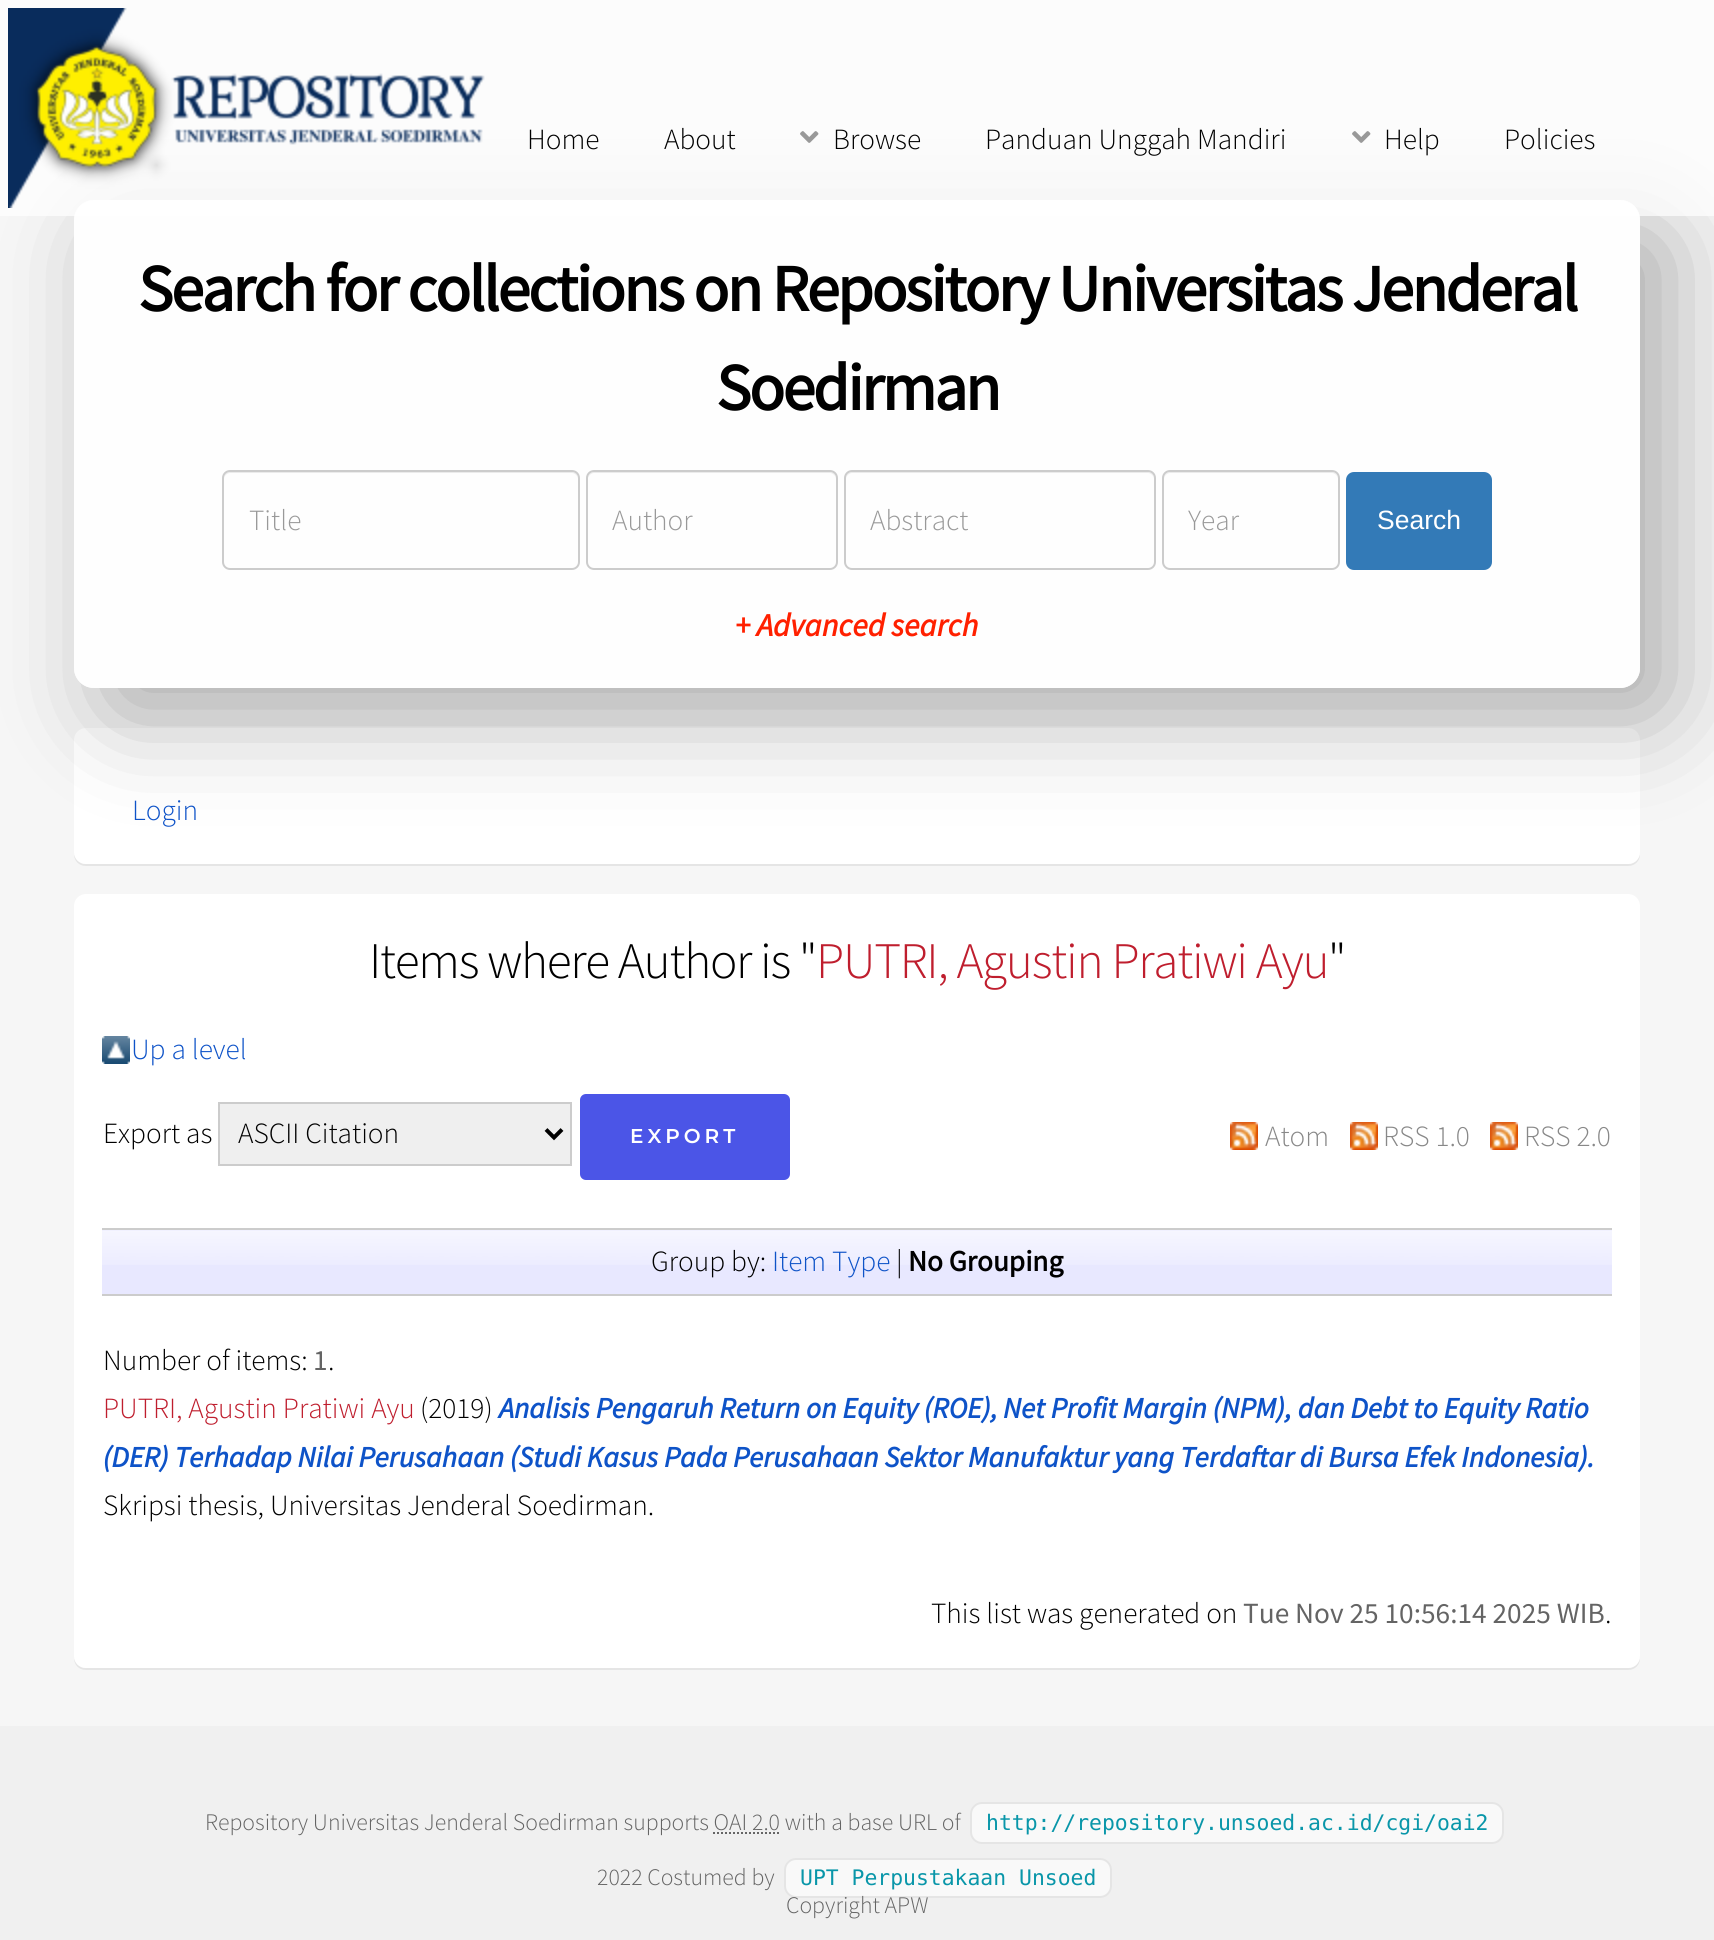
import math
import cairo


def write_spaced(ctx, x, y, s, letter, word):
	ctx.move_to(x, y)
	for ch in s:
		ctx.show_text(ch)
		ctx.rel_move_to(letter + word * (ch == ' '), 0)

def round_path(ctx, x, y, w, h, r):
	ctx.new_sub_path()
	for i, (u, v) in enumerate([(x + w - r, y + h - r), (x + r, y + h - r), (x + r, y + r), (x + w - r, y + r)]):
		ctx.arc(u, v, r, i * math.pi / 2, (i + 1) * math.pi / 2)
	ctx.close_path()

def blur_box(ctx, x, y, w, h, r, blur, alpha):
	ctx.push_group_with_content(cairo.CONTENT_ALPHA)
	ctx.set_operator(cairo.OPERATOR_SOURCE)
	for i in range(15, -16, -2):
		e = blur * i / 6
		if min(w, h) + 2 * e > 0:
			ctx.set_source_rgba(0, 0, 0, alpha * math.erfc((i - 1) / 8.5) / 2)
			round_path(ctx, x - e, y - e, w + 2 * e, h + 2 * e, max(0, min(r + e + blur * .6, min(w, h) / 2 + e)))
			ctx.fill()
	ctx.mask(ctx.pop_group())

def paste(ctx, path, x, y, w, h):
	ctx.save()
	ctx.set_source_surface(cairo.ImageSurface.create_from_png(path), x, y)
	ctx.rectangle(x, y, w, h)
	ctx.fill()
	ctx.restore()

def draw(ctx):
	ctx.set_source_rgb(0.961, 0.961, 0.961)
	ctx.paint()
	ctx.set_source_rgb(0.898, 0.898, 0.898)
	ctx.new_path()
	ctx.move_to(74, 852)
	ctx.line_to(74, 854)
	ctx.curve_to(74, 861, 79, 866, 86, 866)
	ctx.line_to(1628, 866)
	ctx.curve_to(1635, 866, 1640, 861, 1640, 854)
	ctx.line_to(1640, 852)
	ctx.curve_to(1640, 859, 1635, 864, 1628, 864)
	ctx.line_to(86, 864)
	ctx.curve_to(79, 864, 74, 859, 74, 852)
	ctx.close_path()
	ctx.fill()
	ctx.set_source_rgb(1, 1, 1)
	round_path(ctx, 74, 728, 1566, 136, 12)
	ctx.fill()
	ctx.save()
	ctx.set_fill_rule(cairo.FILL_RULE_EVEN_ODD)
	ctx.new_path()
	ctx.move_to(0, 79)
	ctx.line_to(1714, 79)
	ctx.line_to(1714, 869)
	ctx.line_to(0, 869)
	ctx.close_path()
	ctx.move_to(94, 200)
	ctx.line_to(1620, 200)
	ctx.curve_to(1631, 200, 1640, 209, 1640, 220)
	ctx.line_to(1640, 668)
	ctx.curve_to(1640, 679, 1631, 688, 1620, 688)
	ctx.line_to(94, 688)
	ctx.curve_to(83, 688, 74, 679, 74, 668)
	ctx.line_to(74, 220)
	ctx.curve_to(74, 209, 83, 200, 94, 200)
	ctx.close_path()
	ctx.clip()
	ctx.set_source_rgb(0, 0, 0)
	blur_box(ctx, 104, 230, 1566, 488, 20, 50, 0.3)
	ctx.restore()
	ctx.set_source_rgba(1, 1, 1, 0.85)
	round_path(ctx, 74, 200, 1566, 488, 20)
	ctx.fill()
	ctx.set_source_rgba(1, 1, 1, 0.7)
	ctx.rectangle(0, 0, 1714, 216)
	ctx.fill()
	paste(ctx, 'media/1.png', 8, 8, 477, 200)
	ctx.select_font_face('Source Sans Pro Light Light')
	ctx.set_font_size(29.33)
	ctx.set_source_rgb(0, 0, 0)
	ctx.move_to(527, 149)
	ctx.show_text('Home')
	ctx.move_to(664, 149)
	ctx.show_text('About')
	paste(ctx, 'media/2.png', 800, 131, 19, 12)
	ctx.move_to(833, 149)
	ctx.show_text('Browse')
	ctx.move_to(985, 149)
	ctx.show_text('Panduan Unggah Mandiri')
	paste(ctx, 'media/2.png', 1352, 131, 19, 12)
	ctx.move_to(1384, 149)
	ctx.show_text('Help')
	ctx.move_to(1504, 149)
	ctx.show_text('Policies')
	ctx.select_font_face('Source Sans Pro', cairo.FONT_SLANT_NORMAL, cairo.FONT_WEIGHT_BOLD)
	ctx.set_font_size(66)
	write_spaced(ctx, 138, 311, 'Search for collections on Repository Universitas Jenderal', -2.3, 0)
	write_spaced(ctx, 716, 410, 'Soedirman', -2.3, 0)
	ctx.set_source_rgb(0.918, 0.918, 0.918)
	ctx.new_path()
	ctx.move_to(230, 473)
	ctx.line_to(572, 473)
	ctx.curve_to(575, 473, 578, 476, 578, 479)
	ctx.curve_to(578, 475, 576, 472, 572, 472)
	ctx.line_to(230, 472)
	ctx.curve_to(226, 472, 224, 475, 224, 479)
	ctx.curve_to(224, 476, 227, 473, 230, 473)
	ctx.close_path()
	ctx.fill()
	round_path(ctx, 223, 471, 356, 98, 7)
	ctx.set_source_rgb(0.8, 0.8, 0.8)
	ctx.stroke()
	ctx.select_font_face('Source Sans Pro Light Light')
	ctx.set_font_size(29.33)
	ctx.set_source_rgb(0.6, 0.6, 0.6)
	ctx.move_to(249, 530)
	ctx.show_text('Title')
	ctx.set_source_rgb(0.918, 0.918, 0.918)
	ctx.new_path()
	ctx.move_to(594, 473)
	ctx.line_to(830, 473)
	ctx.curve_to(833, 473, 836, 476, 836, 479)
	ctx.curve_to(836, 475, 834, 472, 830, 472)
	ctx.line_to(593, 472)
	ctx.curve_to(589, 473, 588, 476, 588, 479)
	ctx.curve_to(588, 476, 591, 473, 594, 473)
	ctx.close_path()
	ctx.fill()
	round_path(ctx, 587, 471, 250, 98, 7)
	ctx.set_source_rgb(0.8, 0.8, 0.8)
	ctx.stroke()
	ctx.set_source_rgb(0.6, 0.6, 0.6)
	ctx.move_to(612, 530)
	ctx.show_text('Author')
	ctx.set_source_rgb(0.918, 0.918, 0.918)
	ctx.new_path()
	ctx.move_to(852, 473)
	ctx.line_to(1148, 473)
	ctx.curve_to(1151, 473, 1154, 476, 1154, 479)
	ctx.curve_to(1154, 475, 1152, 472, 1148, 472)
	ctx.line_to(852, 472)
	ctx.curve_to(848, 472, 846, 475, 846, 479)
	ctx.curve_to(846, 476, 849, 473, 852, 473)
	ctx.close_path()
	ctx.fill()
	round_path(ctx, 845, 471, 310, 98, 7)
	ctx.set_source_rgb(0.8, 0.8, 0.8)
	ctx.stroke()
	ctx.set_source_rgb(0.6, 0.6, 0.6)
	ctx.move_to(870, 530)
	ctx.show_text('Abstract')
	ctx.set_source_rgb(0.918, 0.918, 0.918)
	ctx.new_path()
	ctx.move_to(1170, 473)
	ctx.line_to(1332, 473)
	ctx.curve_to(1335, 473, 1338, 476, 1338, 479)
	ctx.line_to(1338, 478)
	ctx.curve_to(1338, 475, 1335, 472, 1332, 472)
	ctx.line_to(1170, 472)
	ctx.curve_to(1167, 472, 1164, 475, 1164, 478)
	ctx.line_to(1164, 479)
	ctx.curve_to(1164, 476, 1167, 473, 1170, 473)
	ctx.close_path()
	ctx.fill()
	round_path(ctx, 1163, 471, 176, 98, 7)
	ctx.set_source_rgb(0.8, 0.8, 0.8)
	ctx.stroke()
	ctx.set_source_rgb(0.6, 0.6, 0.6)
	ctx.move_to(1188, 530)
	ctx.show_text('Year')
	ctx.set_source_rgb(0.2, 0.478, 0.718)
	round_path(ctx, 1346, 472, 146, 98, 8)
	ctx.fill()
	ctx.select_font_face('Liberation Sans')
	ctx.set_font_size(26.5)
	ctx.set_source_rgb(1, 1, 1)
	ctx.move_to(1377, 529)
	ctx.show_text('Search')
	ctx.select_font_face('Source Sans Pro', cairo.FONT_SLANT_ITALIC, cairo.FONT_WEIGHT_BOLD)
	ctx.set_font_size(32)
	ctx.set_source_rgb(1, 0.125, 0)
	ctx.move_to(735, 636)
	ctx.show_text('+ Advanced search')
	ctx.select_font_face('Source Sans Pro Light Light')
	ctx.set_font_size(29.33)
	ctx.set_source_rgb(0.055, 0.325, 0.784)
	ctx.move_to(132, 820)
	ctx.show_text('Login')
	ctx.set_source_rgb(0.898, 0.898, 0.898)
	ctx.new_path()
	ctx.move_to(74, 1656)
	ctx.line_to(74, 1658)
	ctx.curve_to(74, 1665, 79, 1670, 86, 1670)
	ctx.line_to(1628, 1670)
	ctx.curve_to(1635, 1670, 1640, 1665, 1640, 1658)
	ctx.line_to(1640, 1656)
	ctx.curve_to(1640, 1663, 1635, 1668, 1628, 1668)
	ctx.line_to(86, 1668)
	ctx.curve_to(79, 1668, 74, 1663, 74, 1656)
	ctx.close_path()
	ctx.fill()
	ctx.set_source_rgb(1, 1, 1)
	round_path(ctx, 74, 894, 1566, 774, 12)
	ctx.fill()
	ctx.set_font_size(51.25)
	ctx.set_source_rgb(0, 0, 0)
	write_spaced(ctx, 369, 978, 'Items where Author is "', -1.25, 0)
	ctx.set_source_rgb(0.749, 0.118, 0.18)
	write_spaced(ctx, 816, 978, 'PUTRI, Agustin Pratiwi Ayu', -1.25, 0)
	ctx.set_source_rgb(0, 0, 0)
	write_spaced(ctx, 1328, 978, '"', -1.25, 0)
	paste(ctx, 'media/3.png', 102, 1036, 28, 28)
	ctx.set_font_size(29.33)
	ctx.set_source_rgb(0.055, 0.325, 0.784)
	ctx.move_to(131, 1059)
	ctx.show_text('Up a level')
	ctx.set_source_rgb(0, 0, 0)
	ctx.move_to(103, 1143)
	ctx.show_text('Export as')
	ctx.set_source_rgb(0.937, 0.937, 0.937)
	ctx.rectangle(219, 1103, 352, 62)
	ctx.fill_preserve()
	ctx.set_source_rgb(0.8, 0.8, 0.8)
	ctx.stroke()
	ctx.new_path()
	ctx.move_to(546, 1129.5)
	ctx.line_to(554, 1137.5)
	ctx.line_to(562, 1129.5)
	ctx.set_source_rgb(0, 0, 0)
	ctx.set_line_width(4)
	ctx.stroke()
	ctx.move_to(238, 1143)
	ctx.show_text('ASCII Citation')
	ctx.set_source_rgb(0.294, 0.333, 0.906)
	round_path(ctx, 580, 1094, 210, 86, 6)
	ctx.fill()
	ctx.select_font_face('Montserrat SemiBold')
	ctx.set_font_size(20)
	ctx.set_source_rgb(1, 1, 1)
	write_spaced(ctx, 630, 1143, 'EXPORT', 4, 0)
	paste(ctx, 'media/4.png', 1230, 1122, 28, 28)
	ctx.select_font_face('Source Sans Pro Light Light')
	ctx.set_font_size(29.33)
	ctx.set_source_rgb(0.533, 0.533, 0.533)
	ctx.move_to(1265, 1146)
	ctx.show_text('Atom')
	paste(ctx, 'media/4.png', 1350, 1122, 28, 28)
	ctx.move_to(1383, 1146)
	ctx.show_text('RSS 1.0')
	paste(ctx, 'media/4.png', 1490, 1122, 28, 28)
	ctx.move_to(1524, 1146)
	ctx.show_text('RSS 2.0')
	ctx.set_source_rgb(0.91, 0.91, 1)
	ctx.rectangle(102, 1230, 1510, 64)
	ctx.fill()
	paste(ctx, 'media/5.png', 102, 1230, 1510, 35)
	ctx.set_source_rgb(0.8, 0.8, 0.8)
	ctx.rectangle(102, 1228, 1510, 2)
	ctx.fill()
	ctx.rectangle(102, 1294, 1510, 2)
	ctx.fill()
	ctx.set_source_rgb(0, 0, 0)
	ctx.move_to(651, 1271)
	ctx.show_text('Group by:')
	ctx.set_source_rgb(0.055, 0.325, 0.784)
	ctx.move_to(772, 1271)
	ctx.show_text('Item Type')
	ctx.set_source_rgb(0, 0, 0)
	ctx.move_to(896, 1271)
	ctx.show_text('|')
	ctx.select_font_face('Source Sans Pro', cairo.FONT_SLANT_NORMAL, cairo.FONT_WEIGHT_BOLD)
	ctx.move_to(908, 1271)
	ctx.show_text('No Grouping')
	ctx.select_font_face('Source Sans Pro Light Light')
	ctx.move_to(103, 1370)
	ctx.show_text('Number of items:')
	ctx.select_font_face('Source Sans Pro')
	ctx.set_source_rgb(0.392, 0.392, 0.392)
	ctx.move_to(313, 1370)
	ctx.show_text('1')
	ctx.select_font_face('Source Sans Pro Light Light')
	ctx.set_source_rgb(0, 0, 0)
	ctx.move_to(328, 1370)
	ctx.show_text('.')
	ctx.set_source_rgb(0.749, 0.118, 0.18)
	ctx.move_to(103, 1418)
	ctx.show_text('PUTRI, Agustin Pratiwi Ayu')
	ctx.set_source_rgb(0, 0, 0)
	ctx.move_to(420, 1418)
	ctx.show_text('(2019)')
	ctx.select_font_face('Source Sans Pro', cairo.FONT_SLANT_ITALIC, cairo.FONT_WEIGHT_BOLD)
	ctx.set_source_rgb(0.055, 0.325, 0.784)
	for x, y, s in [
		(499, 1418, 'Analisis Pengaruh Return on Equity (ROE),'),
		(1003, 1418, 'Net Profit Margin (NPM), dan Debt to Equity Ratio'),
		(103, 1467, '(DER) Terhadap Nilai Perusahaan (Studi Kasus Pada Perusahaan Sektor Manufaktur yang Terdaftar di Bursa Efek Indonesia).'),
	]:
		ctx.move_to(x, y)
		ctx.show_text(s)
	ctx.select_font_face('Source Sans Pro Light Light')
	ctx.set_source_rgb(0, 0, 0)
	ctx.move_to(103, 1515)
	ctx.show_text('Skripsi thesis, Universitas Jenderal Soedirman.')
	ctx.move_to(931, 1623)
	ctx.show_text('This list was generated on')
	ctx.select_font_face('Source Sans Pro')
	ctx.set_source_rgb(0.392, 0.392, 0.392)
	ctx.move_to(1243, 1623)
	ctx.show_text('Tue Nov 25 10:56:14 2025 WIB')
	ctx.select_font_face('Source Sans Pro Light Light')
	ctx.set_source_rgb(0, 0, 0)
	ctx.move_to(1605, 1623)
	ctx.show_text('.')
	ctx.set_source_rgb(0.941, 0.941, 0.941)
	ctx.rectangle(0, 1726, 1714, 214)
	ctx.fill()
	ctx.set_font_size(23.75)
	ctx.set_source_rgb(0.392, 0.392, 0.392)
	ctx.move_to(205, 1830)
	ctx.show_text('Repository Universitas Jenderal Soedirman supports OAI 2.0 with a base URL of')
	ctx.set_source_rgb(0.973, 0.973, 0.973)
	round_path(ctx, 971, 1803, 532, 40, 11)
	ctx.fill_preserve()
	ctx.set_source_rgb(0.898, 0.898, 0.898)
	ctx.set_line_width(2)
	ctx.stroke()
	ctx.select_font_face('DejaVu Sans Mono')
	ctx.set_font_size(21.4)
	ctx.set_source_rgb(0.039, 0.588, 0.663)
	ctx.move_to(986, 1830)
	ctx.show_text('http://repository.unsoed.ac.id/cgi/oai2')
	ctx.new_path()
	ctx.move_to(713, 1833)
	ctx.line_to(779.5, 1833)
	ctx.set_source_rgb(0.4, 0.4, 0.4)
	ctx.set_dash([2, 2])
	ctx.stroke()
	ctx.select_font_face('Source Sans Pro Light Light')
	ctx.set_font_size(23.75)
	ctx.set_source_rgb(0.392, 0.392, 0.392)
	ctx.move_to(597, 1885)
	ctx.show_text('2022 Costumed by')
	ctx.set_source_rgb(0.973, 0.973, 0.973)
	round_path(ctx, 785, 1859, 326, 38, 11)
	ctx.fill_preserve()
	ctx.set_source_rgb(0.898, 0.898, 0.898)
	ctx.set_dash([])
	ctx.stroke()
	ctx.select_font_face('DejaVu Sans Mono')
	ctx.set_font_size(21.4)
	ctx.set_source_rgb(0.039, 0.588, 0.663)
	ctx.move_to(800, 1885)
	ctx.show_text('UPT Perpustakaan Unsoed')
	ctx.select_font_face('Source Sans Pro Light Light')
	ctx.set_font_size(23.75)
	ctx.set_source_rgb(0.392, 0.392, 0.392)
	ctx.move_to(786, 1913)
	ctx.show_text('Copyright APW')


surface = cairo.ImageSurface(cairo.FORMAT_RGB24, 1714, 1940)
ctx = cairo.Context(surface)
options = cairo.FontOptions()
options.set_hint_metrics(cairo.HINT_METRICS_OFF)
options.set_hint_style(cairo.HINT_STYLE_NONE)
ctx.set_font_options(options)
ctx.set_miter_limit(4)
draw(ctx)
surface.write_to_png('image.png')
